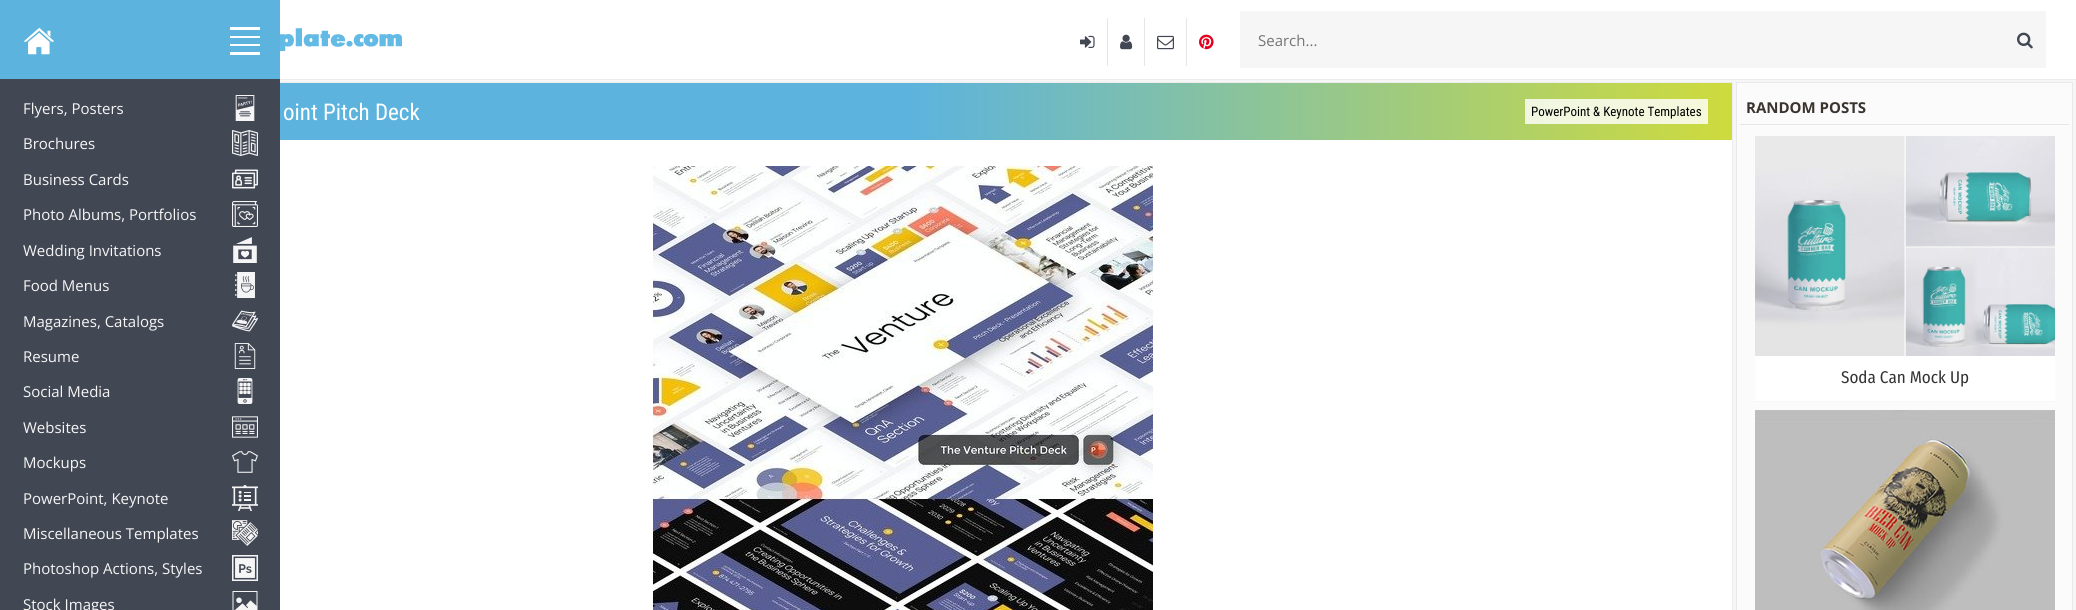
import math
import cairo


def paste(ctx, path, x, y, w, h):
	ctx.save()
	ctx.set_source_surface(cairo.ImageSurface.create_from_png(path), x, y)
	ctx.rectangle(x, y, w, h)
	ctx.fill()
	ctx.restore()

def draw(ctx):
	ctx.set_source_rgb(0.961, 0.961, 0.961)
	ctx.paint()
	ctx.set_source_rgb(1, 1, 1)
	ctx.rectangle(280, 140, 1452, 470)
	ctx.fill()
	ctx.rectangle(73.5, 82.5, 1659, 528)
	ctx.set_source_rgb(0.929, 0.929, 0.929)
	ctx.set_line_width(1)
	ctx.stroke()
	ctx.set_source_rgb(0.259, 0.278, 0.329)
	ctx.rectangle(0, 79, 280, 531)
	ctx.fill()
	ctx.set_source_rgb(0.357, 0.702, 0.871)
	ctx.rectangle(0, 0, 280, 79)
	ctx.fill()
	paste(ctx, 'media/1.png', 24, 27, 30, 28)
	ctx.set_source_rgb(1, 1, 1)
	ctx.rectangle(230, 27, 30, 3)
	ctx.rectangle(230, 36, 30, 2)
	ctx.rectangle(230, 44, 30, 2)
	ctx.rectangle(230, 52, 30, 3)
	ctx.fill()
	ctx.select_font_face('Open Sans')
	ctx.set_font_size(15)
	ctx.set_source_rgb(0.961, 0.961, 0.961)
	ctx.move_to(23, 114)
	ctx.show_text('Flyers, Posters')
	paste(ctx, 'media/2.png', 235, 95, 20, 26)
	ctx.move_to(23, 149)
	ctx.show_text('Brochures')
	paste(ctx, 'media/3.png', 232, 130, 26, 26)
	ctx.move_to(23, 185)
	ctx.show_text('Business Cards')
	paste(ctx, 'media/4.png', 232, 169, 26, 20)
	ctx.move_to(23, 220)
	ctx.show_text('Photo Albums, Portfolios')
	paste(ctx, 'media/5.png', 232, 201, 26, 26)
	ctx.move_to(23, 256)
	ctx.show_text('Wedding Invitations')
	paste(ctx, 'media/6.png', 233, 237, 24, 26)
	ctx.move_to(23, 291)
	ctx.show_text('Food Menus')
	paste(ctx, 'media/7.png', 235, 272, 20, 26)
	ctx.move_to(23, 327)
	ctx.show_text('Magazines, Catalogs')
	paste(ctx, 'media/8.png', 232, 310, 26, 22)
	ctx.move_to(23, 362)
	ctx.show_text('Resume')
	paste(ctx, 'media/9.png', 234, 343, 22, 26)
	ctx.move_to(23, 397)
	ctx.show_text('Social Media')
	paste(ctx, 'media/10.png', 237, 378, 16, 26)
	ctx.move_to(23, 433)
	ctx.show_text('Websites')
	paste(ctx, 'media/11.png', 232, 416, 26, 22)
	ctx.move_to(23, 468)
	ctx.show_text('Mockups')
	paste(ctx, 'media/12.png', 232, 451, 26, 22)
	ctx.move_to(23, 504)
	ctx.show_text('PowerPoint, Keynote')
	paste(ctx, 'media/13.png', 232, 485, 26, 26)
	ctx.move_to(23, 539)
	ctx.show_text('Miscellaneous Templates')
	paste(ctx, 'media/14.png', 232, 520, 26, 26)
	ctx.move_to(23, 574)
	ctx.show_text('Photoshop Actions, Styles')
	paste(ctx, 'media/15.png', 232, 555, 26, 26)
	ctx.move_to(23, 610)
	ctx.show_text('Stock Images')
	paste(ctx, 'media/16.png', 232, 591, 26, 19)
	ctx.set_source_rgb(1, 1, 1)
	ctx.rectangle(280, 0, 1796, 79)
	ctx.fill()
	ctx.set_source_rgb(0.929, 0.929, 0.929)
	ctx.rectangle(280, 79, 1796, 1)
	ctx.fill()
	paste(ctx, 'media/17.png', 280, 28, 122, 23)
	ctx.set_source_rgb(0.902, 0.902, 0.902)
	ctx.rectangle(1107, 18, 1, 48)
	ctx.fill()
	paste(ctx, 'media/18.png', 1080, 35, 15, 13)
	ctx.rectangle(1144, 18, 1, 48)
	ctx.fill()
	paste(ctx, 'media/19.png', 1120, 34, 13, 16)
	ctx.rectangle(1186, 18, 1, 48)
	ctx.fill()
	paste(ctx, 'media/20.png', 1157, 35, 17, 15)
	paste(ctx, 'media/21.png', 1199, 34, 15, 16)
	ctx.set_source_rgb(0.961, 0.961, 0.961)
	ctx.rectangle(1240, 11, 806, 57)
	ctx.fill()
	ctx.set_source_rgb(0.459, 0.459, 0.459)
	ctx.move_to(1258, 46)
	ctx.show_text('Search...')
	paste(ctx, 'media/22.png', 2017, 32, 16, 17)
	gradient = cairo.LinearGradient(74, 28, 1732, 27)
	gradient.add_color_stop_rgba(0.5, 0.357, 0.702, 0.871, 1)
	gradient.add_color_stop_rgba(1, 0.808, 0.859, 0.239, 1)
	ctx.set_source(gradient)
	ctx.rectangle(280, 83, 1452, 57)
	ctx.fill()
	gradient = cairo.LinearGradient(74, 28, 1732, 27)
	gradient.add_color_stop_rgba(0.5, 0.878, 0.945, 0.976, 1)
	gradient.add_color_stop_rgba(1, 0.965, 0.973, 0.855, 1)
	ctx.set_source(gradient)
	ctx.rectangle(1525, 99, 183, 25)
	ctx.fill()
	ctx.select_font_face('Roboto Condensed')
	ctx.set_font_size(23)
	ctx.set_source_rgb(1, 1, 1)
	ctx.move_to(283, 120)
	ctx.show_text('oint Pitch Deck')
	ctx.set_font_size(13)
	ctx.set_source_rgb(0, 0, 0)
	ctx.move_to(1531, 116)
	ctx.show_text('PowerPoint & Keynote Templates')
	paste(ctx, 'media/23.png', 653, 166, 500, 444)
	ctx.set_source_rgb(0.984, 0.984, 0.984)
	ctx.rectangle(1736.5, 82.5, 336, 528)
	ctx.fill_preserve()
	ctx.set_source_rgb(0.914, 0.914, 0.914)
	ctx.stroke()
	ctx.set_source_rgb(0.91, 0.902, 0.886)
	ctx.rectangle(1740, 124, 329, 1)
	ctx.fill()
	ctx.select_font_face('Open Sans', cairo.FONT_SLANT_NORMAL, cairo.FONT_WEIGHT_BOLD)
	ctx.set_font_size(15)
	ctx.set_source_rgb(0.224, 0.204, 0.18)
	ctx.move_to(1746, 113)
	ctx.show_text('RANDOM POSTS')
	paste(ctx, 'media/24.png', 1755, 136, 300, 220)
	ctx.set_source_rgb(1, 1, 1)
	ctx.rectangle(1755, 356, 300, 45)
	ctx.fill()
	ctx.set_source_rgb(0.961, 0.961, 0.961)
	ctx.rectangle(1755, 401, 300, 1)
	ctx.fill()
	ctx.select_font_face('Fira Sans Condensed')
	ctx.set_font_size(17)
	ctx.set_source_rgb(0.2, 0.2, 0.2)
	ctx.move_to(1841, 383)
	ctx.show_text('Soda Can Mock Up')
	paste(ctx, 'media/25.png', 1755, 410, 300, 200)


surface = cairo.ImageSurface(cairo.FORMAT_RGB24, 2076, 610)
ctx = cairo.Context(surface)
options = cairo.FontOptions()
options.set_hint_metrics(cairo.HINT_METRICS_OFF)
options.set_hint_style(cairo.HINT_STYLE_NONE)
ctx.set_font_options(options)
ctx.set_miter_limit(4)
draw(ctx)
surface.write_to_png('image.png')
